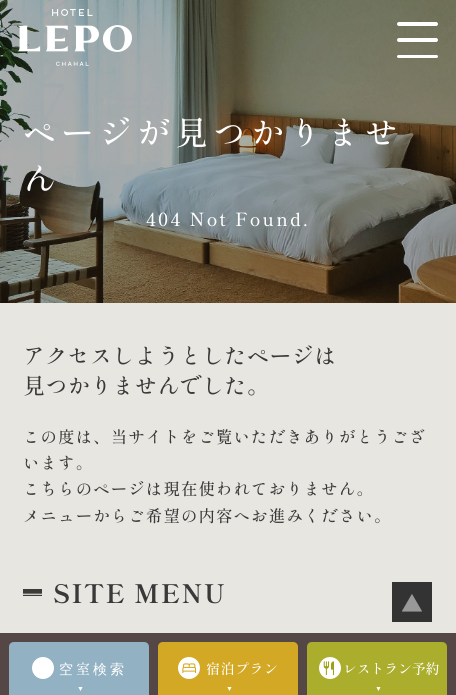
import math
import cairo


def write_spaced(ctx, x, y, s, letter, word):
	ctx.move_to(x, y)
	for ch in s:
		ctx.show_text(ch)
		ctx.rel_move_to(letter + word * (ch == ' '), 0)

def round_path(ctx, x, y, w, h, r):
	ctx.new_sub_path()
	for i, (u, v) in enumerate([(x + w - r, y + h - r), (x + r, y + h - r), (x + r, y + r), (x + w - r, y + r)]):
		ctx.arc(u, v, r, i * math.pi / 2, (i + 1) * math.pi / 2)
	ctx.close_path()

def paste(ctx, path, x, y, w, h):
	ctx.save()
	ctx.set_source_surface(cairo.ImageSurface.create_from_png(path), x, y)
	ctx.rectangle(x, y, w, h)
	ctx.fill()
	ctx.restore()

def draw(ctx):
	ctx.set_source_rgb(0.906, 0.902, 0.882)
	ctx.paint()
	paste(ctx, 'media/2.png', 0, 0, 456, 303)
	paste(ctx, 'media/1.png', 18, 9, 114, 57)
	ctx.set_source_rgb(1, 1, 1)
	round_path(ctx, 397, 22, 41, 4, 2)
	ctx.fill()
	round_path(ctx, 397, 38, 41, 4, 2)
	ctx.fill()
	round_path(ctx, 397, 55, 41, 3, 1.5)
	ctx.fill()
	ctx.select_font_face('Shippori Mincho B1 Medium')
	ctx.set_font_size(32.75)
	write_spaced(ctx, 23, 145, 'ページが見つかりませ', 5.25, 0)
	write_spaced(ctx, 23, 191, 'ん', 5.25, 0)
	ctx.set_font_size(18.25)
	write_spaced(ctx, 146, 226, '404 Not Found.', 2.25, 0)
	ctx.set_font_size(21.9)
	ctx.set_source_rgb(0.224, 0.224, 0.224)
	write_spaced(ctx, 23, 364, 'アクセスしようとしたページは', 0.5, 0)
	write_spaced(ctx, 23, 394, '見つかりませんでした。', 0.5, 0)
	ctx.set_font_size(16.4)
	for x, y, s in [
		(23, 443, 'この度は、当サイトをご覧いただきありがとうござ'),
		(23, 469, 'います。'),
		(23, 495, 'こちらのページは現在使われておりません。'),
		(23, 522, 'メニューからご希望の内容へお進みください。'),
	]:
		write_spaced(ctx, x, y, s, 1.15, 0)
	paste(ctx, 'media/3.png', 23, 589, 19, 7)
	ctx.select_font_face('Shippori Mincho B1', cairo.FONT_SLANT_NORMAL, cairo.FONT_WEIGHT_BOLD)
	ctx.set_font_size(25.5)
	write_spaced(ctx, 53, 603, 'SITE MENU', 1.5, 0)
	ctx.set_source_rgb(0.2, 0.2, 0.2)
	ctx.rectangle(392, 582, 40, 40)
	ctx.fill()
	ctx.select_font_face('Shippori Mincho B1 Medium')
	ctx.set_font_size(21.9)
	ctx.set_source_rgb(0.6, 0.6, 0.6)
	write_spaced(ctx, 401, 611, '▲', 0.5, 0)
	ctx.set_source_rgb(0.329, 0.278, 0.271)
	ctx.rectangle(0, 633, 456, 62)
	ctx.fill()
	ctx.set_source_rgb(0.573, 0.694, 0.765)
	ctx.new_path()
	ctx.move_to(14, 642)
	ctx.line_to(144, 642)
	ctx.curve_to(147, 642, 149, 644, 149, 647)
	ctx.line_to(149, 695)
	ctx.line_to(9, 695)
	ctx.line_to(9, 647)
	ctx.curve_to(9, 644, 11, 642, 14, 642)
	ctx.close_path()
	ctx.fill()
	ctx.set_source_rgb(1, 1, 1)
	ctx.arc(43, 668, 11, 0, 2 * math.pi)
	ctx.fill()
	ctx.select_font_face('WenQuanYi Zen Hei Medium')
	ctx.set_font_size(14)
	write_spaced(ctx, 59, 674, '空', 3, 0)
	ctx.select_font_face('Shippori Mincho B1 Medium')
	write_spaced(ctx, 76, 674, '室', 3, 0)
	ctx.select_font_face('WenQuanYi Zen Hei Medium')
	write_spaced(ctx, 93, 674, '検索', 3, 0)
	ctx.select_font_face('Liberation Serif')
	ctx.set_font_size(7)
	ctx.move_to(77, 691)
	ctx.show_text('▼')
	ctx.set_source_rgb(0.827, 0.659, 0.141)
	ctx.new_path()
	ctx.move_to(163, 642)
	ctx.line_to(293, 642)
	ctx.curve_to(296, 642, 298, 644, 298, 647)
	ctx.line_to(298, 695)
	ctx.line_to(158, 695)
	ctx.line_to(158, 647)
	ctx.curve_to(158, 644, 160, 642, 163, 642)
	ctx.close_path()
	ctx.fill()
	ctx.set_source_rgb(1, 1, 1)
	ctx.arc(189, 668, 11, 0, 2 * math.pi)
	ctx.fill()
	paste(ctx, 'media/4.png', 182, 663, 15, 10)
	ctx.select_font_face('Shippori Mincho B1 Medium')
	ctx.set_font_size(14)
	write_spaced(ctx, 206, 674, '宿泊プラン', 0.5, 0)
	ctx.select_font_face('Liberation Serif')
	ctx.set_font_size(7)
	ctx.move_to(226, 691)
	ctx.show_text('▼')
	ctx.set_source_rgb(0.671, 0.678, 0.176)
	ctx.new_path()
	ctx.move_to(312, 642)
	ctx.line_to(442, 642)
	ctx.curve_to(445, 642, 447, 644, 447, 647)
	ctx.line_to(447, 695)
	ctx.line_to(307, 695)
	ctx.line_to(307, 647)
	ctx.curve_to(307, 644, 309, 642, 312, 642)
	ctx.close_path()
	ctx.fill()
	ctx.set_source_rgb(1, 1, 1)
	ctx.arc(330, 668, 11, 0, 2 * math.pi)
	ctx.fill()
	paste(ctx, 'media/5.png', 323, 661, 11, 15)
	ctx.select_font_face('Shippori Mincho B1 Medium')
	ctx.set_font_size(14)
	write_spaced(ctx, 343, 674, 'レストラン予約', -0.25, 0)
	ctx.select_font_face('Liberation Serif')
	ctx.set_font_size(7)
	ctx.move_to(375, 691)
	ctx.show_text('▼')


surface = cairo.ImageSurface(cairo.FORMAT_RGB24, 456, 695)
ctx = cairo.Context(surface)
options = cairo.FontOptions()
options.set_hint_metrics(cairo.HINT_METRICS_OFF)
options.set_hint_style(cairo.HINT_STYLE_NONE)
ctx.set_font_options(options)
ctx.set_miter_limit(4)
draw(ctx)
surface.write_to_png('image.png')
